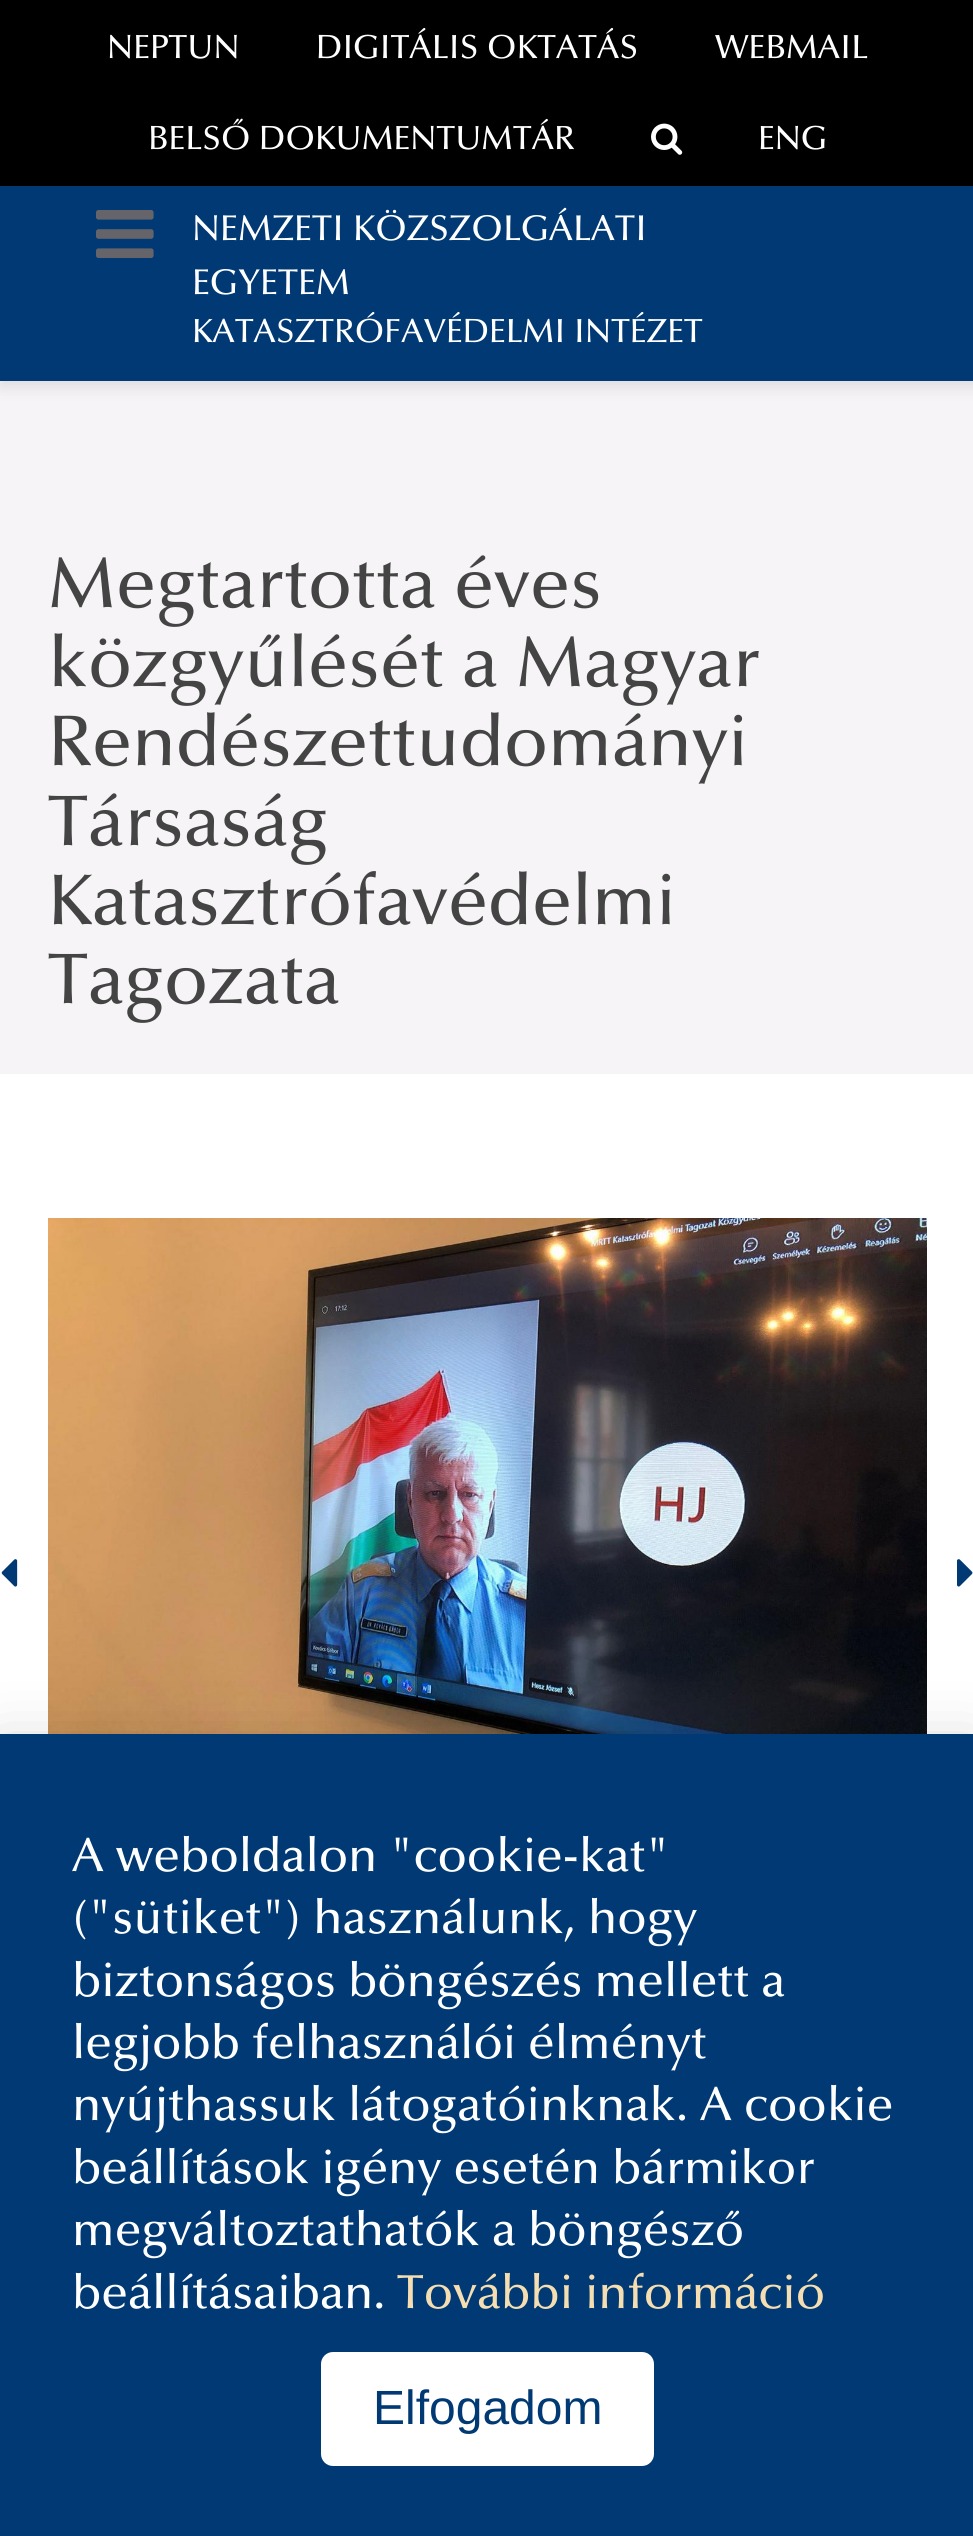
import math
import cairo


def round_path(ctx, x, y, w, h, r):
	ctx.new_sub_path()
	for i, (u, v) in enumerate([(x + w - r, y + h - r), (x + r, y + h - r), (x + r, y + r), (x + w - r, y + r)]):
		ctx.arc(u, v, r, i * math.pi / 2, (i + 1) * math.pi / 2)
	ctx.close_path()

def blur_box(ctx, x, y, w, h, r, blur, alpha):
	ctx.push_group_with_content(cairo.CONTENT_ALPHA)
	ctx.set_operator(cairo.OPERATOR_SOURCE)
	for i in range(15, -16, -2):
		e = blur * i / 6
		if min(w, h) + 2 * e > 0:
			ctx.set_source_rgba(0, 0, 0, alpha * math.erfc((i - 1) / 8.5) / 2)
			round_path(ctx, x - e, y - e, w + 2 * e, h + 2 * e, max(0, min(r + e + blur * .6, min(w, h) / 2 + e)))
			ctx.fill()
	ctx.mask(ctx.pop_group())

def paste(ctx, path, x, y, w, h):
	ctx.save()
	ctx.set_source_surface(cairo.ImageSurface.create_from_png(path), x, y)
	ctx.rectangle(x, y, w, h)
	ctx.fill()
	ctx.restore()

def draw(ctx):
	ctx.set_source_rgb(0.961, 0.957, 0.961)
	ctx.paint()
	ctx.set_source_rgb(0, 0, 0)
	blur_box(ctx, 0, 0, 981, 387, 0, 7.5, 0.1)
	ctx.set_source_rgb(0, 0.224, 0.451)
	ctx.rectangle(0, 186, 973, 195)
	ctx.fill()
	ctx.set_source_rgb(0, 0, 0)
	ctx.rectangle(0, 0, 973, 186)
	ctx.fill()
	ctx.select_font_face('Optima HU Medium')
	ctx.set_font_size(33.6)
	ctx.set_source_rgb(1, 1, 1)
	for x, y, s in [
		(107, 58, 'NEPTUN'),
		(316, 58, 'DIGITÁLIS OKTATÁS'),
		(715, 58, 'WEBMAIL'),
		(148, 149, 'BELSŐ DOKUMENTUMTÁR'),
	]:
		ctx.move_to(x, y)
		ctx.show_text(s)
	paste(ctx, 'media/1.png', 651, 123, 32, 32)
	ctx.move_to(758, 149)
	ctx.show_text('ENG')
	paste(ctx, 'media/2.png', 96, 210, 58, 48)
	ctx.set_font_size(36)
	ctx.move_to(192, 240)
	ctx.show_text('NEMZETI KÖZSZOLGÁLATI')
	ctx.move_to(192, 294)
	ctx.show_text('EGYETEM')
	ctx.set_font_size(33.6)
	ctx.move_to(192, 342)
	ctx.show_text('KATASZTRÓFAVÉDELMI INTÉZET')
	ctx.set_font_size(72)
	ctx.set_source_rgb(0.267, 0.267, 0.267)
	for x, y, s in [
		(48, 607, 'Megtartotta éves'),
		(48, 686, 'közgyűlését a Magyar'),
		(48, 765, 'Rendészettudományi'),
		(48, 845, 'Társaság'),
		(48, 924, 'Katasztrófavédelmi'),
		(48, 1003, 'Tagozata'),
	]:
		ctx.move_to(x, y)
		ctx.show_text(s)
	ctx.set_source_rgb(1, 1, 1)
	ctx.rectangle(0, 1074, 973, 660)
	ctx.fill()
	paste(ctx, 'media/3.png', 1, 1559, 17, 28)
	paste(ctx, 'media/4.png', 48, 1218, 879, 516)
	paste(ctx, 'media/5.png', 957, 1559, 16, 28)
	ctx.set_source_rgb(0, 0, 0)
	blur_box(ctx, 0, 1746, 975, 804, 0, 30, 0.18)
	ctx.set_source_rgb(0, 0.224, 0.451)
	ctx.rectangle(0, 1734, 973, 802)
	ctx.fill()
	ctx.set_font_size(48)
	ctx.set_source_rgb(1, 1, 1)
	for x, y, s in [
		(72, 1871, 'A weboldalon "cookie-kat"'),
		(72, 1933, '("sütiket") használunk, hogy'),
		(72, 1996, 'biztonságos böngészés mellett a'),
		(72, 2058, 'legjobb felhasználói élményt'),
		(72, 2120, 'nyújthassuk látogatóinknak. A cookie'),
		(72, 2183, 'beállítások igény esetén bármikor'),
		(72, 2245, 'megváltoztathatók a böngésző'),
		(72, 2308, 'beállításaiban.'),
	]:
		ctx.move_to(x, y)
		ctx.show_text(s)
	ctx.set_source_rgb(0.961, 0.871, 0.702)
	ctx.move_to(397, 2308)
	ctx.show_text('További információ')
	ctx.set_source_rgb(1, 1, 1)
	round_path(ctx, 321, 2352, 333, 114, 12)
	ctx.fill()
	ctx.select_font_face('Liberation Sans')
	ctx.set_source_rgb(0, 0.224, 0.451)
	ctx.move_to(373, 2424)
	ctx.show_text('Elfogadom')


surface = cairo.ImageSurface(cairo.FORMAT_RGB24, 973, 2536)
ctx = cairo.Context(surface)
options = cairo.FontOptions()
options.set_hint_metrics(cairo.HINT_METRICS_OFF)
options.set_hint_style(cairo.HINT_STYLE_NONE)
ctx.set_font_options(options)
ctx.set_miter_limit(4)
draw(ctx)
surface.write_to_png('image.png')
